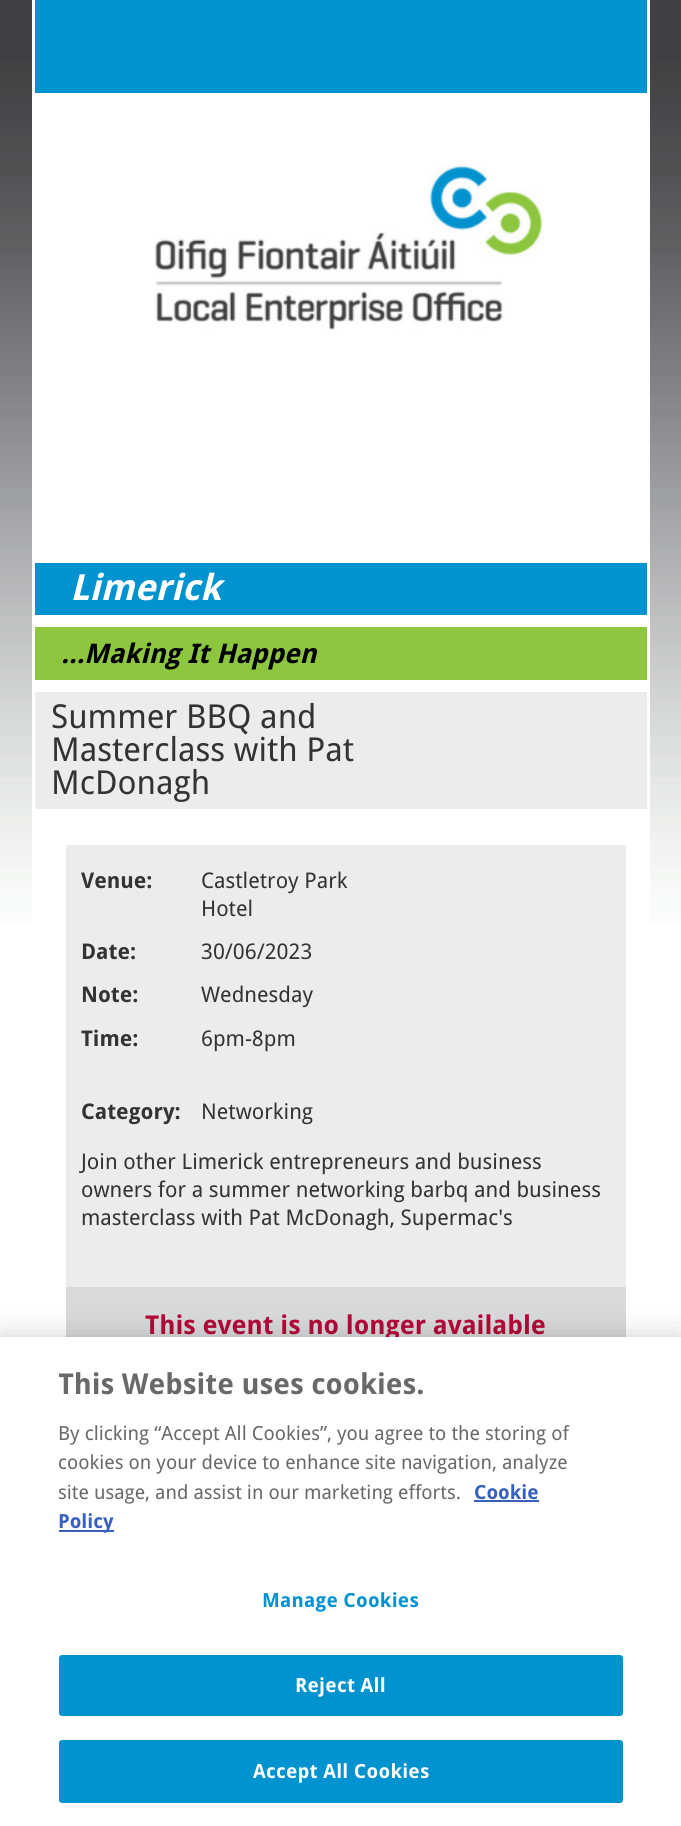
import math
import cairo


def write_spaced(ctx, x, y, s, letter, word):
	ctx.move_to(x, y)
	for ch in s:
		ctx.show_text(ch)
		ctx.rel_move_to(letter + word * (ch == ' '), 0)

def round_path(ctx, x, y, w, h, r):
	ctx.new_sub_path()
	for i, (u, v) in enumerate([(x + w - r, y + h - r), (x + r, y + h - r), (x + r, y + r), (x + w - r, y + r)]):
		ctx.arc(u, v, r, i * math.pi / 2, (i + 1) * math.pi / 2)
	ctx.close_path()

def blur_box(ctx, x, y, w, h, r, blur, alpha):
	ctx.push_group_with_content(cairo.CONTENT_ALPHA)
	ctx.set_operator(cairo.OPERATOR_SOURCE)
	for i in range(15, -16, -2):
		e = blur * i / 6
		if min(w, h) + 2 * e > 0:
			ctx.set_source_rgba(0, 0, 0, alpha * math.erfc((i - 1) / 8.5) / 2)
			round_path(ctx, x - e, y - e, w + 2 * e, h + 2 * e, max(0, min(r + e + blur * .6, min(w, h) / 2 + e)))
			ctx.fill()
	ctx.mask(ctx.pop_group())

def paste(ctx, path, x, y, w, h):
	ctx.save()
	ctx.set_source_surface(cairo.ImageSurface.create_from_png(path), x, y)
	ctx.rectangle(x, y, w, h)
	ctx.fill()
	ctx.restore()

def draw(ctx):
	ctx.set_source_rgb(1, 1, 1)
	ctx.paint()
	paste(ctx, 'media/1.png', 0, 0, 681, 925)
	ctx.set_source_rgb(1, 1, 1)
	ctx.rectangle(32, 0, 618, 563)
	ctx.fill()
	ctx.set_source_rgb(0, 0.576, 0.816)
	ctx.rectangle(35, 0, 612, 93)
	ctx.fill()
	paste(ctx, 'media/2.png', 154, 165, 390, 165)
	ctx.set_source_rgb(1, 1, 1)
	ctx.rectangle(647, 563, 3, 129)
	ctx.rectangle(32, 563, 3, 129)
	ctx.fill()
	ctx.set_source_rgb(0, 0.576, 0.816)
	ctx.rectangle(35, 563, 612, 52)
	ctx.fill()
	ctx.set_source_rgb(1, 1, 1)
	ctx.rectangle(35, 615, 612, 12)
	ctx.fill()
	ctx.select_font_face('Droid Sans', cairo.FONT_SLANT_ITALIC, cairo.FONT_WEIGHT_BOLD)
	ctx.set_font_size(36)
	ctx.move_to(70, 600)
	ctx.show_text('Limerick')
	ctx.set_source_rgb(0.553, 0.776, 0.247)
	ctx.rectangle(35, 627, 612, 53)
	ctx.fill()
	ctx.set_source_rgb(1, 1, 1)
	ctx.rectangle(35, 680, 612, 12)
	ctx.fill()
	ctx.set_font_size(27)
	ctx.set_source_rgb(0, 0, 0)
	ctx.move_to(61, 663)
	ctx.show_text('...Making It Happen')
	ctx.set_source_rgb(1, 1, 1)
	ctx.rectangle(32, 692, 618, 233)
	ctx.fill()
	ctx.set_source_rgb(0.922, 0.925, 0.925)
	ctx.rectangle(35, 692, 612, 117)
	ctx.fill()
	ctx.select_font_face('Droid Sans')
	ctx.set_font_size(33)
	ctx.set_source_rgb(0.2, 0.2, 0.2)
	for x, y, s in [
		(51, 728, 'Summer BBQ and'),
		(51, 761, 'Masterclass with Pat'),
		(51, 794, 'McDonagh'),
	]:
		ctx.move_to(x, y)
		ctx.show_text(s)
	ctx.set_source_rgb(0.922, 0.925, 0.925)
	ctx.rectangle(66, 845, 560, 442)
	ctx.fill()
	ctx.select_font_face('Droid Sans', cairo.FONT_SLANT_NORMAL, cairo.FONT_WEIGHT_BOLD)
	ctx.set_font_size(21.6)
	ctx.set_source_rgb(0.2, 0.2, 0.2)
	ctx.move_to(81, 888)
	ctx.show_text('Venue:')
	ctx.select_font_face('Droid Sans')
	ctx.move_to(201, 888)
	ctx.show_text('Castletroy Park')
	ctx.move_to(201, 916)
	ctx.show_text('Hotel')
	ctx.select_font_face('Droid Sans', cairo.FONT_SLANT_NORMAL, cairo.FONT_WEIGHT_BOLD)
	ctx.move_to(81, 959)
	ctx.show_text('Date:')
	ctx.select_font_face('Droid Sans')
	ctx.move_to(201, 959)
	ctx.show_text('30/06/2023')
	ctx.select_font_face('Droid Sans', cairo.FONT_SLANT_NORMAL, cairo.FONT_WEIGHT_BOLD)
	ctx.move_to(81, 1002)
	ctx.show_text('Note:')
	ctx.select_font_face('Droid Sans')
	ctx.move_to(201, 1002)
	ctx.show_text('Wednesday')
	ctx.select_font_face('Droid Sans', cairo.FONT_SLANT_NORMAL, cairo.FONT_WEIGHT_BOLD)
	ctx.move_to(81, 1046)
	ctx.show_text('Time:')
	ctx.select_font_face('Droid Sans')
	ctx.move_to(201, 1046)
	ctx.show_text('6pm-8pm')
	ctx.select_font_face('Droid Sans', cairo.FONT_SLANT_NORMAL, cairo.FONT_WEIGHT_BOLD)
	ctx.move_to(81, 1119)
	ctx.show_text('Category:')
	ctx.select_font_face('Droid Sans')
	for x, y, s in [
		(201, 1119, 'Networking'),
		(81, 1169, 'Join other Limerick entrepreneurs and business'),
		(81, 1197, 'owners for a summer networking barbq and business'),
		(81, 1225, 'masterclass with Pat McDonagh, Supermac\'s'),
	]:
		ctx.move_to(x, y)
		ctx.show_text(s)
	ctx.set_source_rgb(0.847, 0.851, 0.855)
	ctx.rectangle(66, 1287, 560, 50)
	ctx.fill()
	ctx.select_font_face('Droid Sans', cairo.FONT_SLANT_NORMAL, cairo.FONT_WEIGHT_BOLD)
	ctx.set_font_size(25.9)
	ctx.set_source_rgb(0.71, 0.035, 0.22)
	ctx.move_to(145, 1334)
	ctx.show_text('This event is no longer available')
	ctx.set_source_rgb(0, 0, 0)
	blur_box(ctx, 0, 1337, 681, 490, 0, 13.5, 0.2)
	ctx.set_source_rgb(1, 1, 1)
	ctx.rectangle(0, 1337, 681, 489)
	ctx.fill()
	ctx.save()
	ctx.rectangle(59, 1367, 534, 189)
	ctx.clip()
	ctx.set_font_size(28.75)
	ctx.set_source_rgb(0.412, 0.412, 0.412)
	ctx.move_to(58, 1394)
	ctx.show_text('This Website uses cookies.')
	ctx.restore()
	ctx.select_font_face('Droid Sans')
	ctx.set_font_size(19.5)
	ctx.set_source_rgb(0.412, 0.412, 0.412)
	for x, y, s in [
		(58, 1440, 'By clicking “Accept All Cookies”, you agree to the storing of'),
		(58, 1469, 'cookies on your device to enhance site navigation, analyze'),
		(58, 1499, 'site usage, and assist in our marketing efforts.'),
	]:
		ctx.move_to(x, y)
		ctx.show_text(s)
	ctx.select_font_face('Droid Sans', cairo.FONT_SLANT_NORMAL, cairo.FONT_WEIGHT_BOLD)
	ctx.set_source_rgb(0.22, 0.376, 0.745)
	ctx.move_to(474, 1499)
	ctx.show_text('Cookie')
	ctx.rectangle(474, 1500, 65, 2)
	ctx.fill()
	ctx.rectangle(59, 1530, 55, 2)
	ctx.fill()
	ctx.move_to(58, 1528)
	ctx.show_text('Policy')
	ctx.set_source_rgb(0, 0.576, 0.816)
	write_spaced(ctx, 262, 1607, 'Manage Cookies', 0.25, 0)
	round_path(ctx, 60, 1656, 562, 59, 2)
	ctx.fill_preserve()
	ctx.stroke()
	ctx.set_source_rgb(1, 1, 1)
	write_spaced(ctx, 295, 1692, 'Reject All', 0.25, 0)
	ctx.set_source_rgb(0, 0.576, 0.816)
	round_path(ctx, 60, 1741, 562, 61, 2)
	ctx.fill_preserve()
	ctx.stroke()
	ctx.set_source_rgb(1, 1, 1)
	write_spaced(ctx, 253, 1778, 'Accept All Cookies', 0.25, 0)


surface = cairo.ImageSurface(cairo.FORMAT_RGB24, 681, 1826)
ctx = cairo.Context(surface)
options = cairo.FontOptions()
options.set_hint_metrics(cairo.HINT_METRICS_OFF)
options.set_hint_style(cairo.HINT_STYLE_NONE)
ctx.set_font_options(options)
ctx.set_miter_limit(4)
draw(ctx)
surface.write_to_png('image.png')
